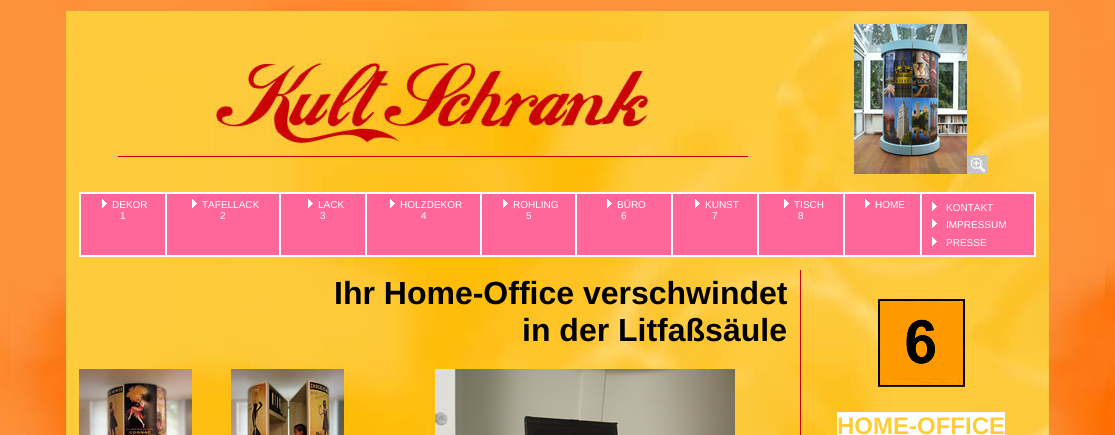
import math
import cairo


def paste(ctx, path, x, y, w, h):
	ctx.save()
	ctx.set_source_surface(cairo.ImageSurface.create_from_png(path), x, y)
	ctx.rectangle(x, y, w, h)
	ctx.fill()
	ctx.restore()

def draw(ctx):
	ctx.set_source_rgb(1, 1, 1)
	ctx.paint()
	paste(ctx, 'media/1.png', 0, 0, 1115, 435)
	paste(ctx, 'media/2.png', 10, 10, 1095, 425)
	paste(ctx, 'media/3.png', 66, 11, 983, 424)
	paste(ctx, 'media/4.png', 214, 41, 534, 115)
	ctx.set_source_rgb(0.8, 0, 0)
	ctx.rectangle(118, 156, 630, 1)
	ctx.fill()
	paste(ctx, 'media/5.png', 854, 24, 113, 150)
	paste(ctx, 'media/6.png', 967, 155, 20, 19)
	ctx.set_source_rgb(1, 1, 1)
	ctx.rectangle(79, 192, 957, 65)
	ctx.fill()
	ctx.set_source_rgb(1, 0.4, 0.6)
	ctx.rectangle(81, 194, 84, 61)
	ctx.fill()
	paste(ctx, 'media/7.png', 102, 199, 5, 9)
	ctx.select_font_face('Liberation Sans')
	ctx.set_font_size(10)
	ctx.set_source_rgb(1, 1, 1)
	ctx.move_to(112, 208)
	ctx.show_text('DEKOR')
	ctx.move_to(120, 219)
	ctx.show_text('1')
	ctx.set_source_rgb(1, 0.4, 0.6)
	ctx.rectangle(167, 194, 112, 61)
	ctx.fill()
	paste(ctx, 'media/7.png', 192, 199, 5, 9)
	ctx.set_source_rgb(1, 1, 1)
	ctx.move_to(202, 208)
	ctx.show_text('TAFELLACK')
	ctx.move_to(220, 219)
	ctx.show_text('2')
	ctx.set_source_rgb(1, 0.4, 0.6)
	ctx.rectangle(281, 194, 84, 61)
	ctx.fill()
	paste(ctx, 'media/7.png', 308, 199, 5, 9)
	ctx.set_source_rgb(1, 1, 1)
	ctx.move_to(318, 208)
	ctx.show_text('LACK')
	ctx.move_to(320, 219)
	ctx.show_text('3')
	ctx.set_source_rgb(1, 0.4, 0.6)
	ctx.rectangle(367, 194, 113, 61)
	ctx.fill()
	paste(ctx, 'media/7.png', 390, 199, 5, 9)
	ctx.set_source_rgb(1, 1, 1)
	ctx.move_to(400, 208)
	ctx.show_text('HOLZDEKOR')
	ctx.move_to(421, 219)
	ctx.show_text('4')
	ctx.set_source_rgb(1, 0.4, 0.6)
	ctx.rectangle(482, 194, 93, 61)
	ctx.fill()
	paste(ctx, 'media/7.png', 503, 199, 5, 9)
	ctx.set_source_rgb(1, 1, 1)
	ctx.move_to(513, 208)
	ctx.show_text('ROHLING')
	ctx.move_to(526, 219)
	ctx.show_text('5')
	ctx.set_source_rgb(1, 0.4, 0.6)
	ctx.rectangle(577, 194, 94, 61)
	ctx.fill()
	paste(ctx, 'media/7.png', 607, 199, 5, 9)
	ctx.set_source_rgb(1, 1, 1)
	ctx.move_to(617, 208)
	ctx.show_text('BÜRO')
	ctx.move_to(621, 219)
	ctx.show_text('6')
	ctx.set_source_rgb(1, 0.4, 0.6)
	ctx.rectangle(673, 194, 84, 61)
	ctx.fill()
	paste(ctx, 'media/7.png', 695, 199, 5, 9)
	ctx.set_source_rgb(1, 1, 1)
	ctx.move_to(705, 208)
	ctx.show_text('KUNST')
	ctx.move_to(712, 219)
	ctx.show_text('7')
	ctx.set_source_rgb(1, 0.4, 0.6)
	ctx.rectangle(759, 194, 84, 61)
	ctx.fill()
	paste(ctx, 'media/7.png', 784, 199, 5, 9)
	ctx.set_source_rgb(1, 1, 1)
	ctx.move_to(794, 208)
	ctx.show_text('TISCH')
	ctx.move_to(798, 219)
	ctx.show_text('8')
	ctx.set_source_rgb(1, 0.4, 0.6)
	ctx.rectangle(845, 194, 75, 61)
	ctx.fill()
	paste(ctx, 'media/7.png', 865, 199, 5, 9)
	ctx.set_source_rgb(1, 1, 1)
	ctx.move_to(875, 208)
	ctx.show_text('HOME')
	ctx.set_source_rgb(1, 0.4, 0.6)
	ctx.rectangle(922, 194, 112, 61)
	ctx.fill()
	paste(ctx, 'media/7.png', 932, 202, 5, 9)
	ctx.set_source_rgb(1, 1, 1)
	ctx.move_to(946, 211)
	ctx.show_text('KONTAKT')
	paste(ctx, 'media/7.png', 932, 219, 5, 9)
	ctx.move_to(946, 228)
	ctx.show_text('IMPRESSUM')
	paste(ctx, 'media/7.png', 932, 237, 5, 9)
	ctx.move_to(946, 246)
	ctx.show_text('PRESSE')
	ctx.select_font_face('Liberation Sans', cairo.FONT_SLANT_NORMAL, cairo.FONT_WEIGHT_BOLD)
	ctx.set_font_size(32)
	ctx.set_source_rgb(0, 0, 0)
	ctx.move_to(334, 304)
	ctx.show_text('Ihr Home-Office verschwindet')
	ctx.move_to(522, 341)
	ctx.show_text('in der Litfaßsäule')
	ctx.set_source_rgb(0.8, 0, 0)
	ctx.rectangle(800, 270, 1, 165)
	ctx.fill()
	paste(ctx, 'media/8.png', 878, 299, 87, 88)
	ctx.set_source_rgb(1, 1, 1)
	ctx.rectangle(837, 412, 168, 23)
	ctx.fill()
	ctx.set_font_size(24)
	ctx.set_source_rgb(1, 0.8, 0.2)
	ctx.move_to(837, 434)
	ctx.show_text('HOME-OFFICE')
	paste(ctx, 'media/9.png', 79, 369, 113, 66)
	paste(ctx, 'media/10.png', 231, 369, 113, 66)
	paste(ctx, 'media/11.png', 435, 369, 300, 66)


surface = cairo.ImageSurface(cairo.FORMAT_RGB24, 1115, 435)
ctx = cairo.Context(surface)
options = cairo.FontOptions()
options.set_hint_metrics(cairo.HINT_METRICS_OFF)
options.set_hint_style(cairo.HINT_STYLE_NONE)
ctx.set_font_options(options)
ctx.set_miter_limit(4)
draw(ctx)
surface.write_to_png('image.png')
